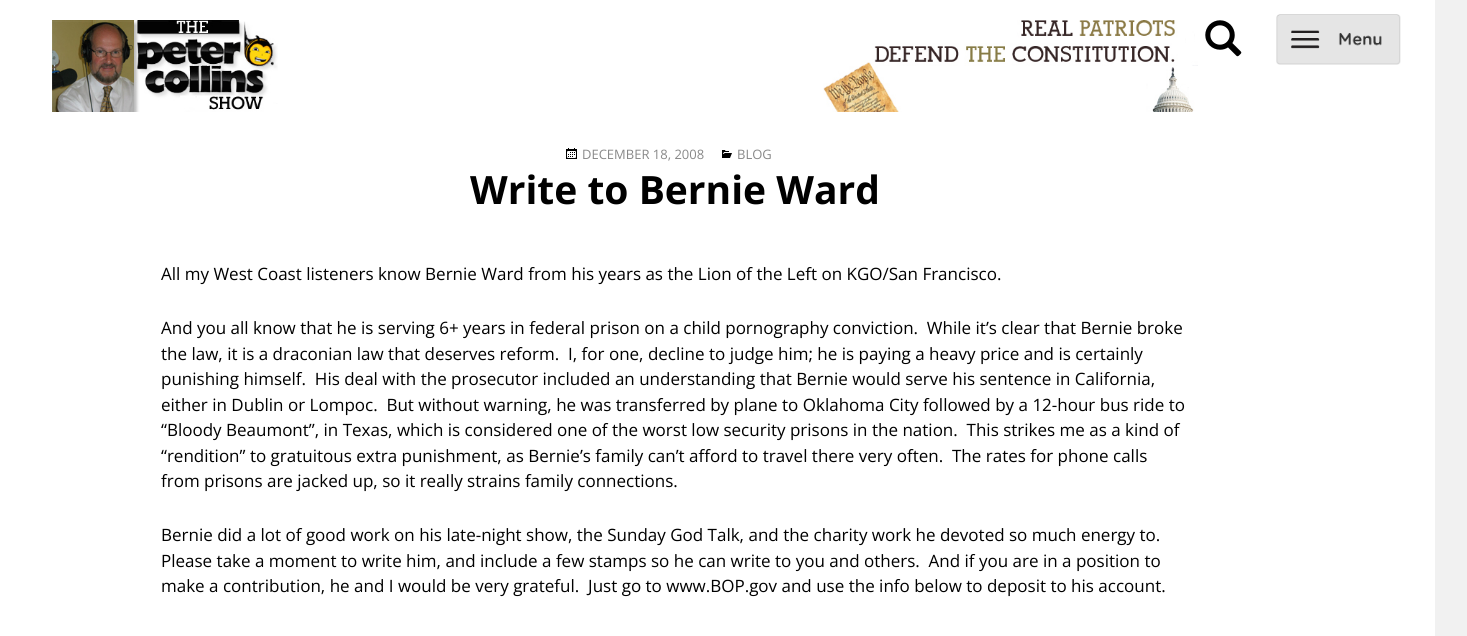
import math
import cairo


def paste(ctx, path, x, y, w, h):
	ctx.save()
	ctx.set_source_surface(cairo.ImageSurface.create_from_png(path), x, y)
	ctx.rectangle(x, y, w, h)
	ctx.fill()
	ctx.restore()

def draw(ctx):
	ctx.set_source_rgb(0.945, 0.945, 0.945)
	ctx.paint()
	ctx.set_source_rgb(1, 1, 1)
	ctx.rectangle(0, 0, 32, 636)
	ctx.fill()
	ctx.rectangle(32, 0, 1403, 636)
	ctx.fill()
	paste(ctx, 'media/1.png', 52, 20, 226, 92)
	paste(ctx, 'media/2.png', 823, 20, 375, 92)
	paste(ctx, 'media/3.png', 1205, 20, 37, 37)
	paste(ctx, 'media/4.png', 1276, 14, 125, 51)
	paste(ctx, 'media/5.png', 566, 148, 11, 11)
	ctx.select_font_face('Open Sans')
	ctx.set_font_size(13)
	ctx.set_source_rgb(0.533, 0.533, 0.533)
	ctx.move_to(582, 159)
	ctx.show_text('DECEMBER 18, 2008')
	paste(ctx, 'media/6.png', 722, 150, 10, 8)
	ctx.move_to(737, 159)
	ctx.show_text('BLOG')
	ctx.select_font_face('Open Sans', cairo.FONT_SLANT_NORMAL, cairo.FONT_WEIGHT_BOLD)
	ctx.set_font_size(39)
	ctx.set_source_rgb(0, 0, 0)
	ctx.move_to(470, 204)
	ctx.show_text('Write to Bernie Ward')
	ctx.select_font_face('Open Sans')
	ctx.set_font_size(17)
	for x, y, s in [
		(161, 280, 'All my West Coast listeners know Bernie Ward from his years as the Lion of the Left on KGO/San Francisco.'),
		(161, 334, 'And you all know that he is serving 6+ years in federal prison on a child pornography conviction.  While it’s clear that Bernie broke'),
		(161, 360, 'the law, it is a draconian law that deserves reform.  I, for one, decline to judge him; he is paying a heavy price and is certainly'),
		(161, 385, 'punishing himself.  His deal with the prosecutor included an understanding that Bernie would serve his sentence in California,'),
		(161, 411, 'either in Dublin or Lompoc.  But without warning, he was transferred by plane to Oklahoma City followed by a 12-hour bus ride to'),
		(161, 436, '“Bloody Beaumont”, in Texas, which is considered one of the worst low security prisons in the nation.  This strikes me as a kind of'),
		(161, 462, '“rendition” to gratuitous extra punishment, as Bernie’s family can’t afford to travel there very often.  The rates for phone calls'),
		(161, 487, 'from prisons are jacked up, so it really strains family connections.'),
		(161, 541, 'Bernie did a lot of good work on his late-night show, the Sunday God Talk, and the charity work he devoted so much energy to.'),
		(161, 567, 'Please take a moment to write him, and include a few stamps so he can write to you and others.  And if you are in a position to'),
		(161, 592, 'make a contribution, he and I would be very grateful.  Just go to www.BOP.gov and use the info below to deposit to his account.'),
	]:
		ctx.move_to(x, y)
		ctx.show_text(s)


surface = cairo.ImageSurface(cairo.FORMAT_RGB24, 1467, 636)
ctx = cairo.Context(surface)
options = cairo.FontOptions()
options.set_hint_metrics(cairo.HINT_METRICS_OFF)
options.set_hint_style(cairo.HINT_STYLE_NONE)
ctx.set_font_options(options)
ctx.set_miter_limit(4)
draw(ctx)
surface.write_to_png('image.png')
